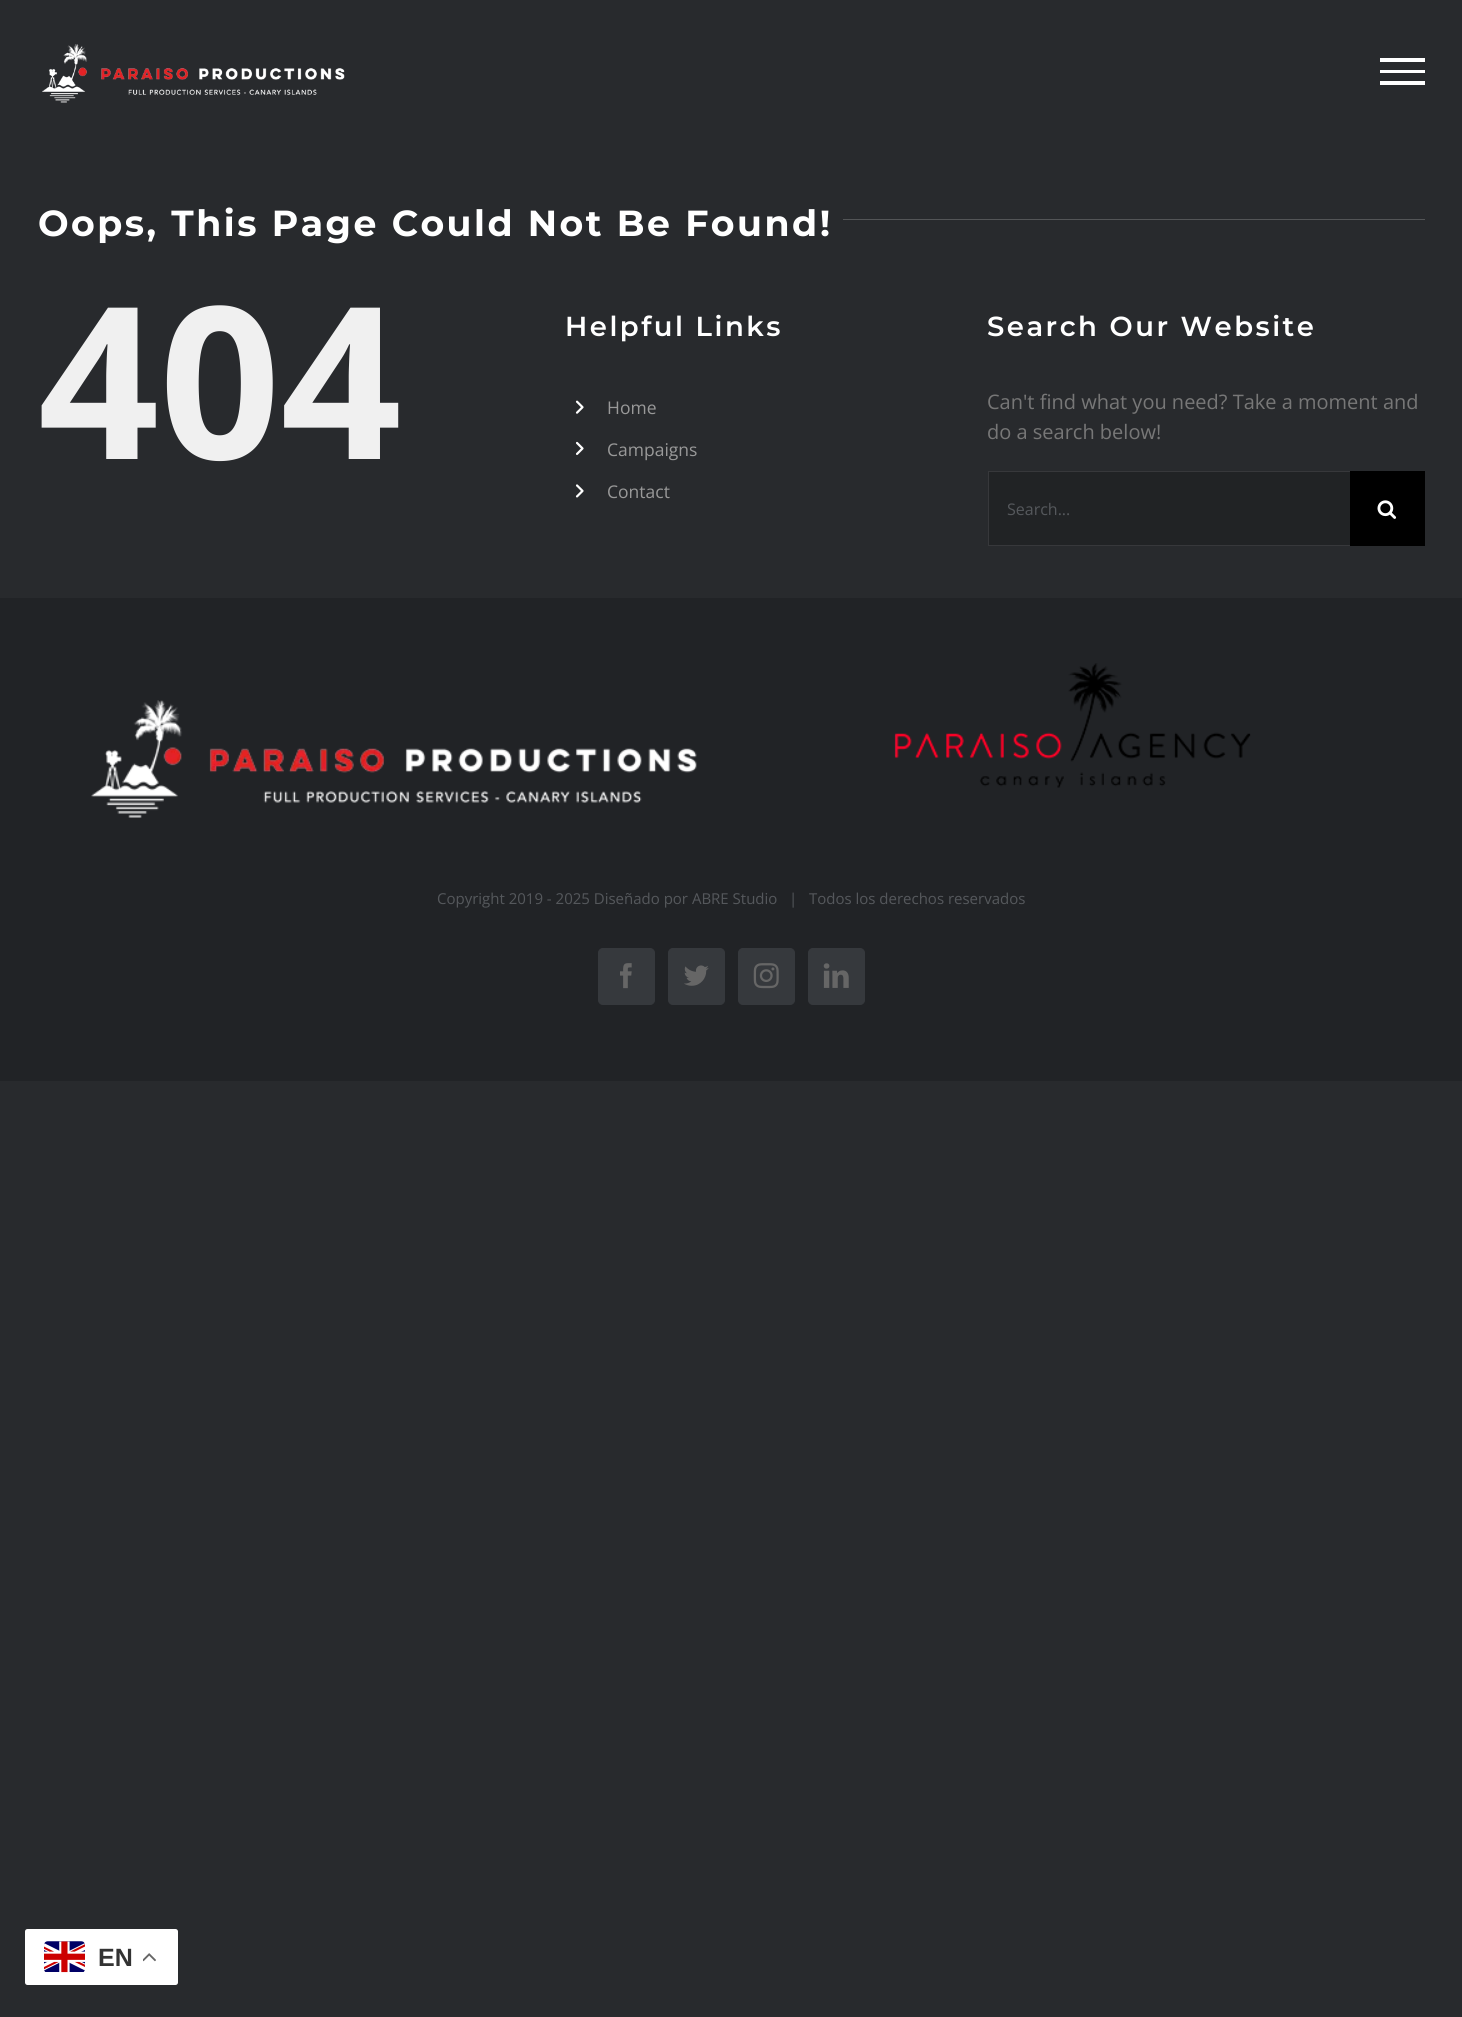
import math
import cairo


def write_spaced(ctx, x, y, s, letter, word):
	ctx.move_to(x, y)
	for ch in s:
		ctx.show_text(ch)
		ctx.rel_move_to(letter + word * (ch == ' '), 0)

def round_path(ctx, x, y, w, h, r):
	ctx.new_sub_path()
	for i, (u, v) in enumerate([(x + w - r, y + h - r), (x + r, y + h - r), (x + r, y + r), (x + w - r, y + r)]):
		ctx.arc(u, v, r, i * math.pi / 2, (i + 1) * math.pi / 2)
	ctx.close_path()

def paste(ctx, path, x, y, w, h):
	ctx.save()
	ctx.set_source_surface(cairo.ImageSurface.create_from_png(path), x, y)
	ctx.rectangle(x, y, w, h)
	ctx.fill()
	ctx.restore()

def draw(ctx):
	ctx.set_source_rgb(0.157, 0.165, 0.176)
	ctx.paint()
	paste(ctx, 'media/1.png', 42, 44, 303, 59)
	ctx.set_source_rgb(1, 1, 1)
	ctx.rectangle(1380, 58, 45, 4)
	ctx.rectangle(1380, 70, 45, 3)
	ctx.rectangle(1380, 81, 45, 4)
	ctx.fill()
	ctx.select_font_face('Montserrat', cairo.FONT_SLANT_NORMAL, cairo.FONT_WEIGHT_BOLD)
	ctx.set_font_size(36.25)
	write_spaced(ctx, 38, 236, 'Oops, This Page Could Not Be Found!', 2.5, 0)
	ctx.set_source_rgb(0.325, 0.333, 0.341)
	ctx.rectangle(843, 219, 582, 1)
	ctx.fill()
	ctx.select_font_face('Open Sans', cairo.FONT_SLANT_NORMAL, cairo.FONT_WEIGHT_BOLD)
	ctx.set_font_size(212)
	ctx.set_source_rgb(0.941, 0.941, 0.941)
	ctx.move_to(38, 459)
	ctx.show_text('404')
	ctx.select_font_face('Montserrat SemiBold')
	ctx.set_font_size(27.5)
	ctx.set_source_rgb(1, 1, 1)
	write_spaced(ctx, 565, 336, 'Helpful Links', 2.5, 0)
	paste(ctx, 'media/2.png', 575, 400, 9, 14)
	ctx.select_font_face('Open Sans')
	ctx.set_font_size(17.5)
	ctx.set_source_rgb(0.6, 0.6, 0.6)
	ctx.move_to(607, 414)
	ctx.show_text('Home')
	paste(ctx, 'media/3.png', 576, 441, 8, 14)
	ctx.move_to(607, 456)
	ctx.show_text('Campaigns')
	paste(ctx, 'media/4.png', 575, 484, 9, 14)
	ctx.move_to(607, 498)
	ctx.show_text('Contact')
	ctx.select_font_face('Montserrat SemiBold')
	ctx.set_font_size(27.5)
	ctx.set_source_rgb(1, 1, 1)
	write_spaced(ctx, 987, 336, 'Search Our Website', 2.5, 0)
	ctx.select_font_face('Open Sans')
	ctx.set_font_size(20)
	ctx.set_source_rgb(0.467, 0.467, 0.467)
	ctx.move_to(987, 409)
	ctx.show_text('Can\'t find what you need? Take a moment and')
	ctx.move_to(987, 439)
	ctx.show_text('do a search below!')
	ctx.set_source_rgb(0.129, 0.137, 0.145)
	ctx.rectangle(989, 472, 361, 73)
	ctx.fill()
	ctx.set_source_rgb(0.216, 0.22, 0.231)
	ctx.rectangle(988, 471, 362, 1)
	ctx.rectangle(988, 545, 362, 1)
	ctx.rectangle(988, 471, 1, 75)
	ctx.fill()
	ctx.set_font_size(16)
	ctx.set_source_rgb(0.333, 0.345, 0.361)
	ctx.move_to(1007, 515)
	ctx.show_text('Search...')
	ctx.set_source_rgb(0, 0, 0)
	ctx.rectangle(1350, 471, 75, 75)
	ctx.fill()
	paste(ctx, 'media/5.png', 1377, 500, 20, 19)
	ctx.set_source_rgb(0.129, 0.137, 0.149)
	ctx.rectangle(0, 598, 1462, 483)
	ctx.fill()
	paste(ctx, 'media/6.png', 91, 700, 606, 118)
	paste(ctx, 'media/7.png', 894, 663, 357, 125)
	ctx.set_font_size(15)
	ctx.set_source_rgb(0.333, 0.345, 0.361)
	ctx.move_to(437, 904)
	ctx.show_text('Copyright 2019 - 2025 Diseñado por ABRE Studio')
	ctx.move_to(789, 904)
	ctx.show_text('|   Todos los derechos reservados')
	ctx.set_source_rgb(0.212, 0.224, 0.239)
	round_path(ctx, 598.5, 948.5, 56, 56, 4.5)
	ctx.fill_preserve()
	ctx.set_line_width(1)
	ctx.stroke()
	paste(ctx, 'media/8.png', 620, 963, 12, 26)
	round_path(ctx, 668.5, 948.5, 56, 56, 4.5)
	ctx.fill_preserve()
	ctx.stroke()
	paste(ctx, 'media/9.png', 684, 965, 25, 21)
	round_path(ctx, 738.5, 948.5, 56, 56, 4.5)
	ctx.fill_preserve()
	ctx.stroke()
	paste(ctx, 'media/10.png', 753, 963, 26, 26)
	round_path(ctx, 808.5, 948.5, 56, 56, 4.5)
	ctx.fill_preserve()
	ctx.stroke()
	paste(ctx, 'media/11.png', 823, 963, 26, 25)
	ctx.set_source_rgb(1, 1, 1)
	round_path(ctx, 25, 1929, 153, 56, 2.5)
	ctx.fill()
	paste(ctx, 'media/12.png', 44, 1941, 41, 32)
	ctx.select_font_face('Liberation Sans', cairo.FONT_SLANT_NORMAL, cairo.FONT_WEIGHT_BOLD)
	ctx.set_font_size(25)
	ctx.set_source_rgb(0.2, 0.2, 0.2)
	ctx.move_to(98, 1966)
	ctx.show_text('EN')
	paste(ctx, 'media/13.png', 143, 1953, 13, 9)


surface = cairo.ImageSurface(cairo.FORMAT_RGB24, 1462, 2017)
ctx = cairo.Context(surface)
options = cairo.FontOptions()
options.set_hint_metrics(cairo.HINT_METRICS_OFF)
options.set_hint_style(cairo.HINT_STYLE_NONE)
ctx.set_font_options(options)
ctx.set_miter_limit(4)
draw(ctx)
surface.write_to_png('image.png')
